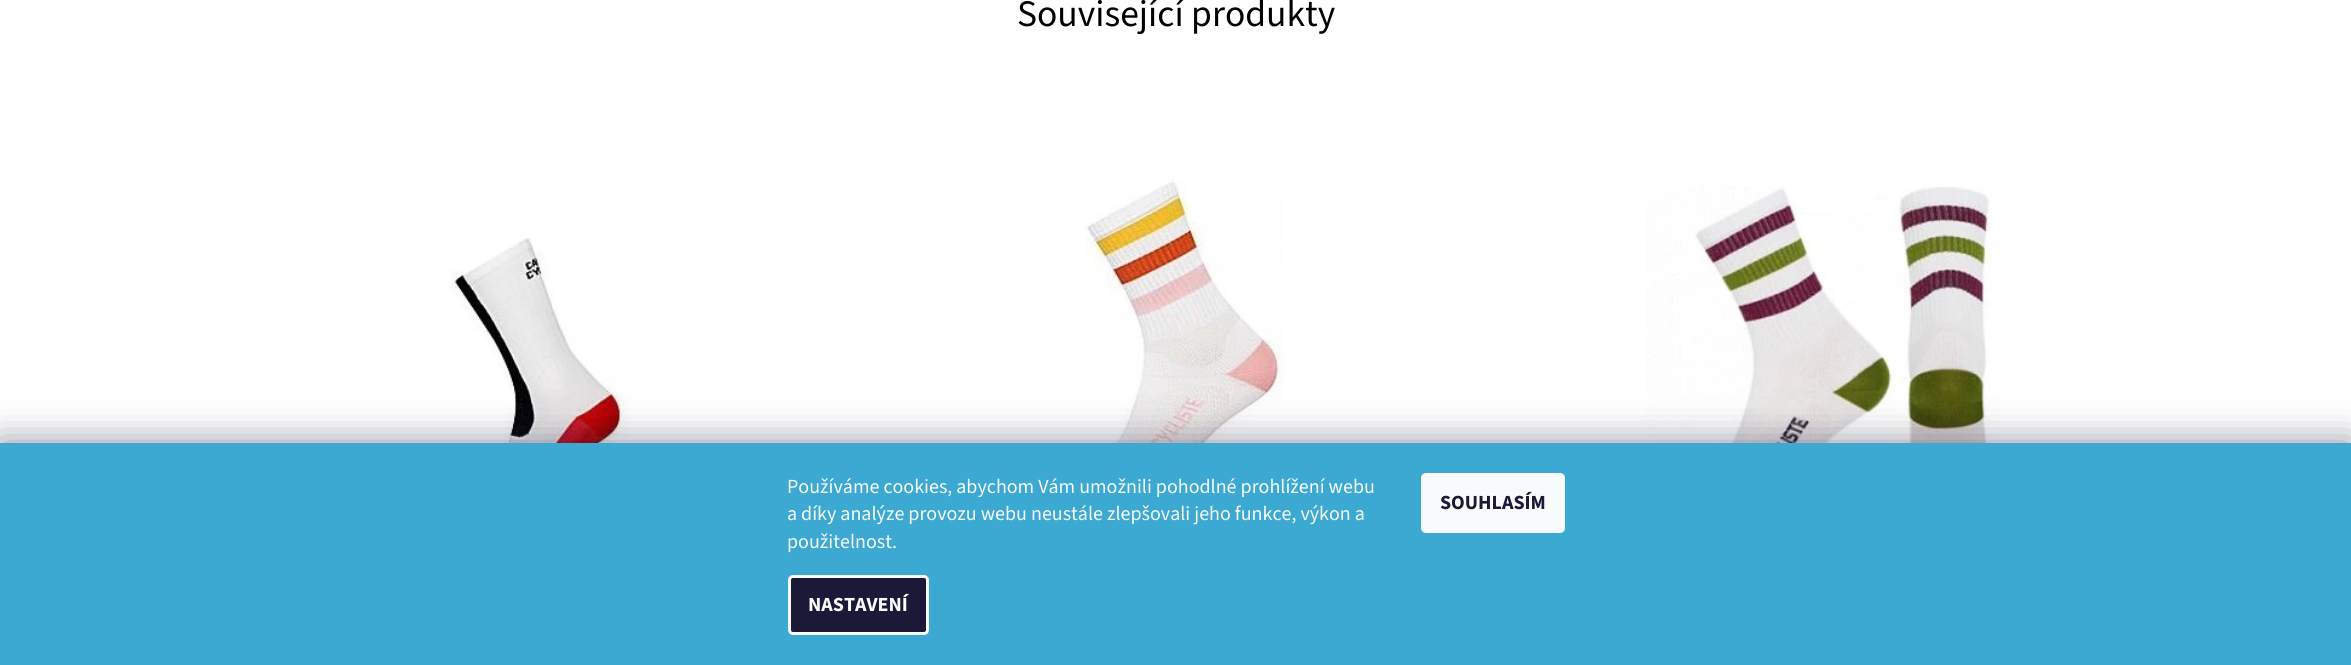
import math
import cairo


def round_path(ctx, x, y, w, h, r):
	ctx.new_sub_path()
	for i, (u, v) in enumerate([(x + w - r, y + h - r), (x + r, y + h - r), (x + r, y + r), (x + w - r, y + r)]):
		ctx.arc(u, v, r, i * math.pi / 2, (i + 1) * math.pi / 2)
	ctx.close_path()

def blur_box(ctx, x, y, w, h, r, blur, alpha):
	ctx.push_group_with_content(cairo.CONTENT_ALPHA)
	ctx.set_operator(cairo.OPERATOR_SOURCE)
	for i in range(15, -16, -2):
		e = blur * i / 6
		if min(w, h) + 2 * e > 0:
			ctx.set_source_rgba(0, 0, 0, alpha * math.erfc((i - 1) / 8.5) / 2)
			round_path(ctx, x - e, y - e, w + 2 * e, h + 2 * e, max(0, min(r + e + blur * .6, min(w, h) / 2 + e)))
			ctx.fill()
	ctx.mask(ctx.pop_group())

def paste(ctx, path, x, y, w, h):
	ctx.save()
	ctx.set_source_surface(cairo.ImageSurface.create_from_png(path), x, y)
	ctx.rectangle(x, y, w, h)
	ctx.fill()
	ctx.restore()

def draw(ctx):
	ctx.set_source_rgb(1, 1, 1)
	ctx.paint()
	ctx.select_font_face('Source Sans 3')
	ctx.set_font_size(37.5)
	ctx.set_source_rgb(0, 0, 0)
	ctx.move_to(1017, 26)
	ctx.show_text('Související produkty')
	paste(ctx, 'media/1.png', 437, 238, 194, 205)
	paste(ctx, 'media/2.png', 1042, 179, 242, 264)
	paste(ctx, 'media/3.png', 1646, 186, 353, 257)
	ctx.set_source_rgb(0.106, 0.098, 0.224)
	blur_box(ctx, 0, 443, 2351, 222, 0, 19, 0.5)
	ctx.set_source_rgb(0.231, 0.663, 0.824)
	ctx.rectangle(0, 443, 2351, 222)
	ctx.fill()
	ctx.set_font_size(20)
	ctx.set_source_rgb(0.973, 0.98, 0.984)
	for x, y, s in [
		(787, 493, 'Používáme cookies, abychom Vám umožnili pohodlné prohlížení webu'),
		(787, 520, 'a díky analýze provozu webu neustále zlepšovali jeho funkce, výkon a'),
		(787, 548, 'použitelnost.'),
	]:
		ctx.move_to(x, y)
		ctx.show_text(s)
	ctx.set_source_rgb(0.102, 0.098, 0.216)
	round_path(ctx, 789.5, 576.5, 138, 57, 3.5)
	ctx.fill_preserve()
	ctx.set_source_rgb(0.973, 0.98, 0.984)
	ctx.set_line_width(3)
	ctx.stroke()
	ctx.select_font_face('Source Sans 3', cairo.FONT_SLANT_NORMAL, cairo.FONT_WEIGHT_BOLD)
	ctx.move_to(808, 611)
	ctx.show_text('NASTAVENÍ')
	round_path(ctx, 1421, 473, 144, 60, 5)
	ctx.fill()
	ctx.set_source_rgb(0.102, 0.098, 0.216)
	ctx.move_to(1440, 509)
	ctx.show_text('SOUHLASÍM')


surface = cairo.ImageSurface(cairo.FORMAT_RGB24, 2351, 665)
ctx = cairo.Context(surface)
options = cairo.FontOptions()
options.set_hint_metrics(cairo.HINT_METRICS_OFF)
options.set_hint_style(cairo.HINT_STYLE_NONE)
ctx.set_font_options(options)
ctx.set_miter_limit(4)
draw(ctx)
surface.write_to_png('image.png')
